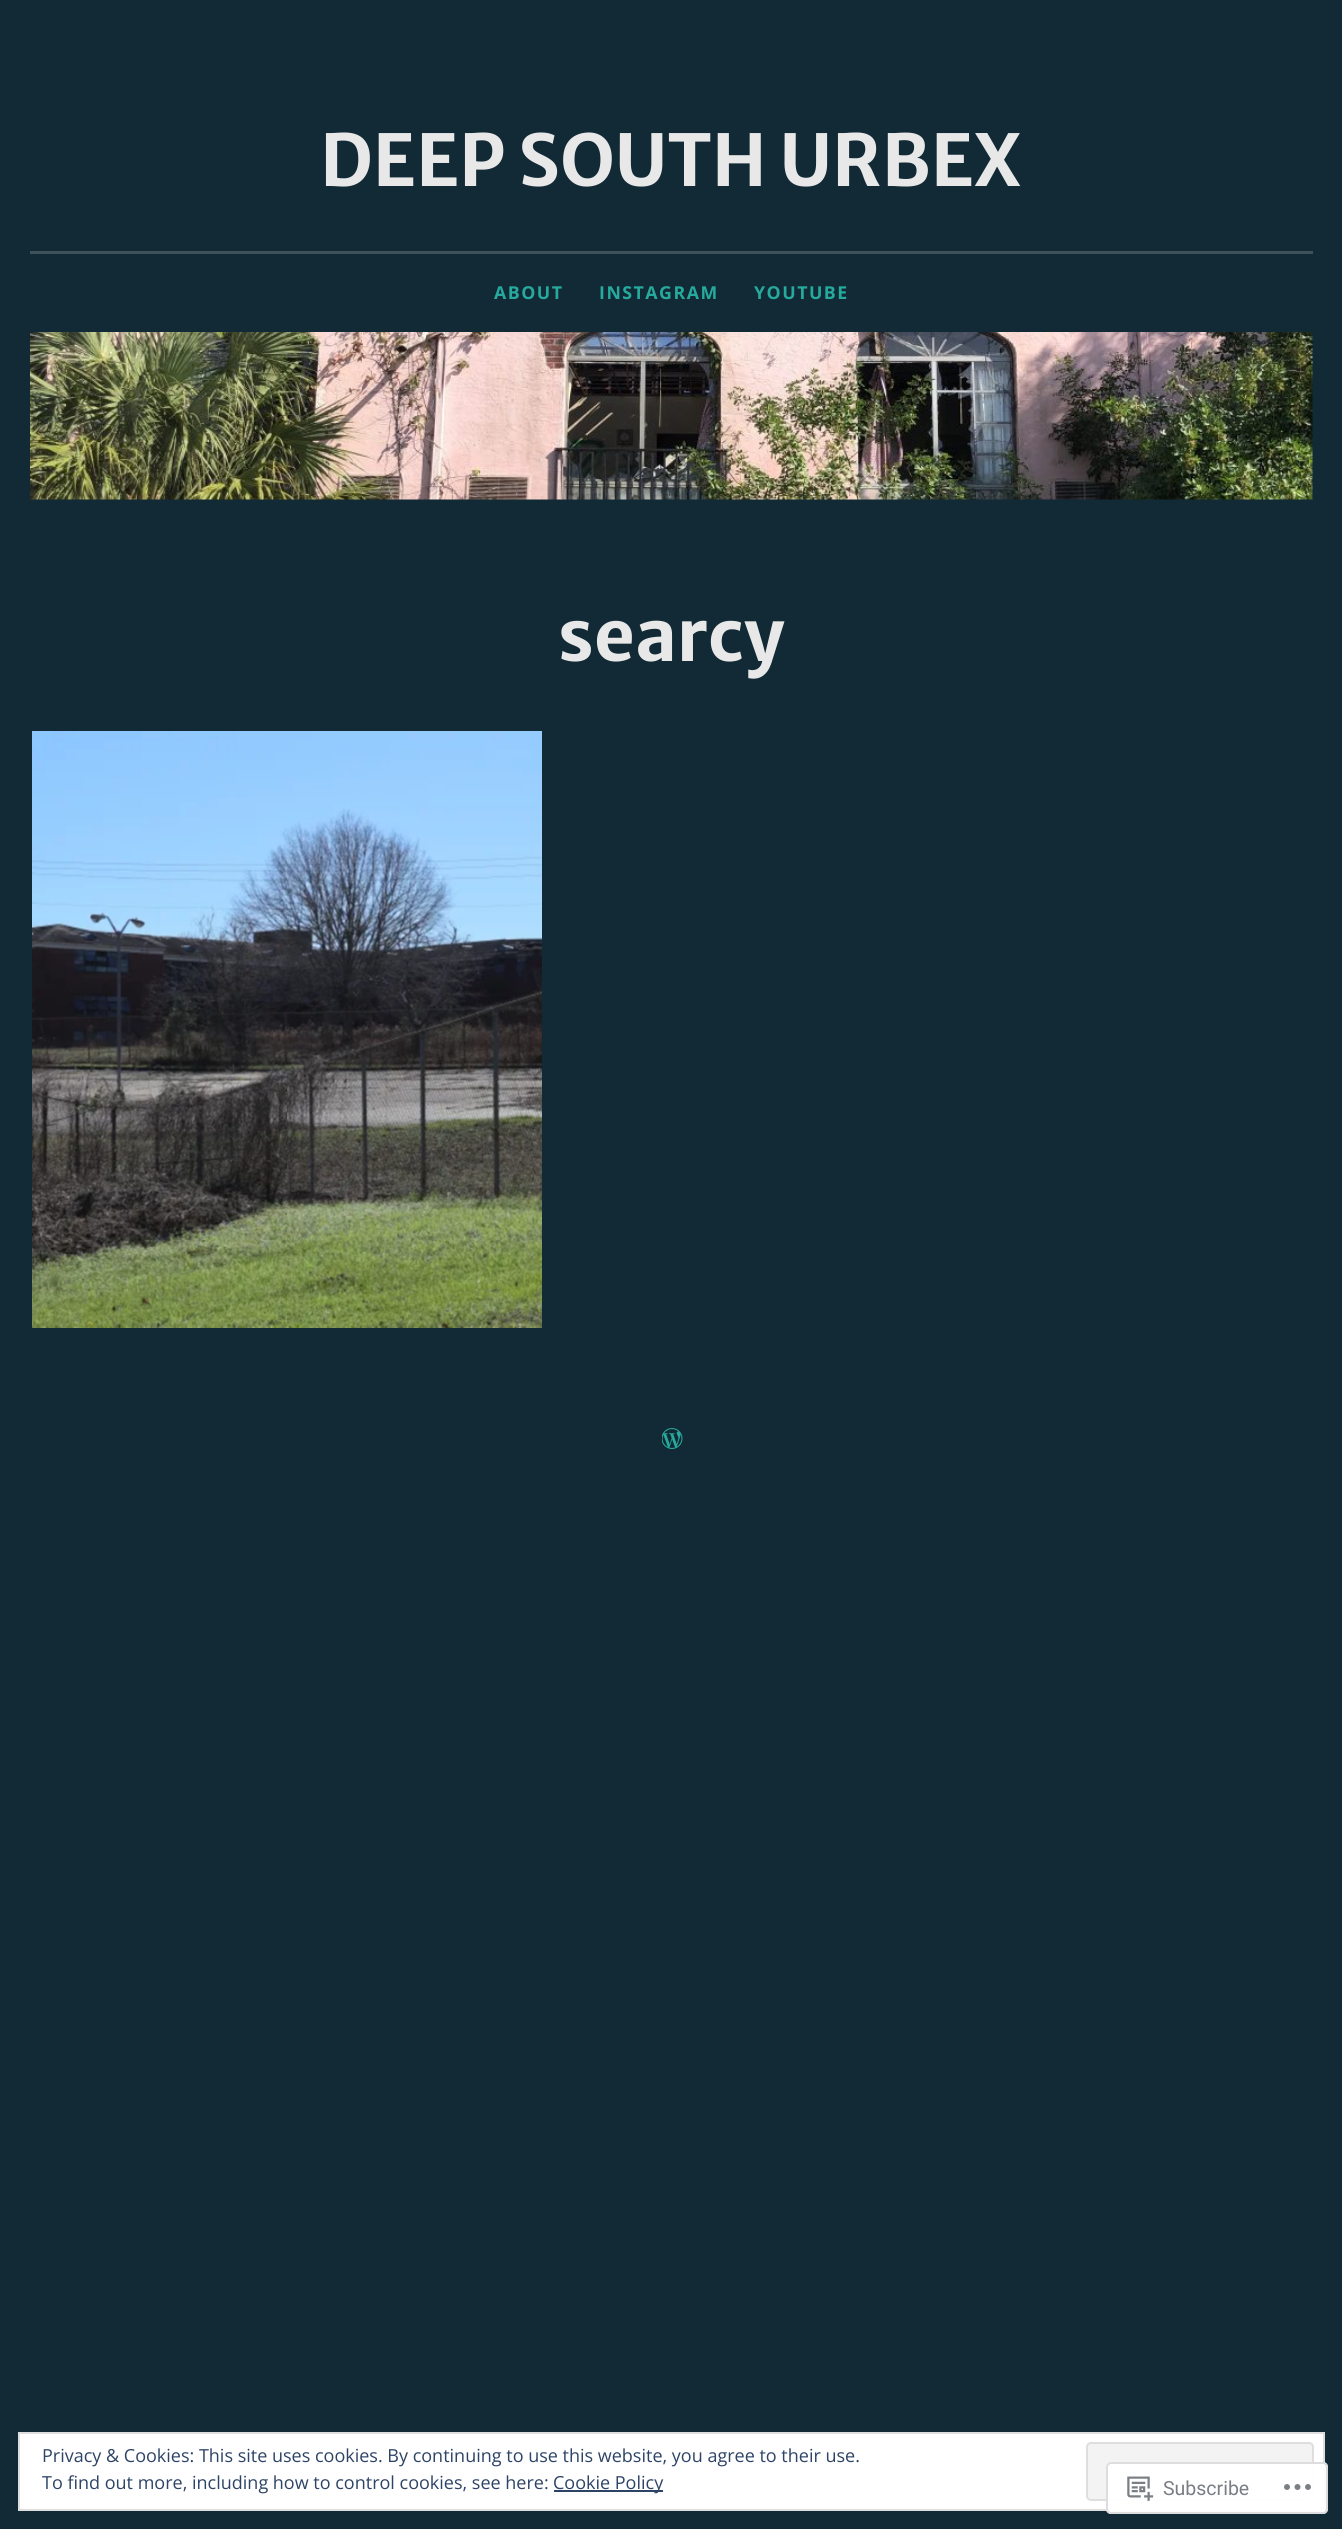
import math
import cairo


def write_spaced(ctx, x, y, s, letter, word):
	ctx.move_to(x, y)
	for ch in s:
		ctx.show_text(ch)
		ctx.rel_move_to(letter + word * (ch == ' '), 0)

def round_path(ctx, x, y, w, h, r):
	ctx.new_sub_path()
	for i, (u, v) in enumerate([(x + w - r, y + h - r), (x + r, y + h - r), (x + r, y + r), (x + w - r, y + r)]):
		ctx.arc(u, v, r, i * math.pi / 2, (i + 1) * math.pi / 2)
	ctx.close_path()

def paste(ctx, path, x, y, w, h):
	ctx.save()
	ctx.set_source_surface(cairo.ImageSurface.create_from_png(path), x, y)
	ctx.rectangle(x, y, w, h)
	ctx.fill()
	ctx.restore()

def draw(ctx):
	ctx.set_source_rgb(0.071, 0.165, 0.208)
	ctx.paint()
	ctx.select_font_face('Merriweather Sans', cairo.FONT_SLANT_NORMAL, cairo.FONT_WEIGHT_BOLD)
	ctx.set_font_size(71.25)
	ctx.set_source_rgb(0.91, 0.91, 0.91)
	ctx.move_to(320, 186)
	ctx.show_text('DEEP SOUTH URBEX')
	ctx.set_source_rgb(0.247, 0.322, 0.357)
	ctx.rectangle(30, 251, 1283, 3)
	ctx.fill()
	ctx.select_font_face('Open Sans', cairo.FONT_SLANT_NORMAL, cairo.FONT_WEIGHT_BOLD)
	ctx.set_font_size(17.75)
	ctx.set_source_rgb(0.149, 0.667, 0.616)
	for x, y, s in [
		(494, 299, 'ABOUT'),
		(599, 299, 'INSTAGRAM'),
		(754, 299, 'YOUTUBE'),
	]:
		write_spaced(ctx, x, y, s, 1.5, 0)
	paste(ctx, 'media/1.png', 30, 332, 1283, 168)
	ctx.select_font_face('Merriweather Sans', cairo.FONT_SLANT_NORMAL, cairo.FONT_WEIGHT_BOLD)
	ctx.set_font_size(71.25)
	ctx.set_source_rgb(0.91, 0.91, 0.91)
	ctx.move_to(558, 661)
	ctx.show_text('searcy')
	paste(ctx, 'media/2.png', 32, 731, 510, 597)
	paste(ctx, 'media/3.png', 662, 1428, 21, 21)
	ctx.set_source_rgb(1, 1, 1)
	ctx.rectangle(19, 2433, 1305, 77)
	ctx.fill_preserve()
	ctx.set_source_rgb(0.871, 0.871, 0.871)
	ctx.stroke()
	ctx.select_font_face('Open Sans')
	ctx.set_font_size(18)
	ctx.set_source_rgb(0.18, 0.267, 0.404)
	ctx.move_to(42, 2462)
	ctx.show_text('Privacy & Cookies: This site uses cookies. By continuing to use this website, you agree to their use.')
	ctx.set_source_rgb(0.953, 0.953, 0.953)
	round_path(ctx, 1087, 2443, 226, 57, 4)
	ctx.fill_preserve()
	ctx.set_source_rgb(0.871, 0.871, 0.871)
	ctx.stroke()
	ctx.set_source_rgb(0.18, 0.267, 0.404)
	ctx.move_to(42, 2489)
	ctx.show_text('To find out more, including how to control cookies, see here:')
	ctx.rectangle(554, 2490, 109, 2)
	ctx.fill()
	ctx.move_to(553, 2489)
	ctx.show_text('Cookie Policy')
	ctx.set_source_rgba(1, 1, 1, 0.98)
	round_path(ctx, 1106, 2462, 222, 52, 5)
	ctx.fill()
	round_path(ctx, 1107, 2463, 220, 50, 4)
	ctx.set_source_rgba(0.863, 0.863, 0.871, 0.98)
	ctx.stroke()
	paste(ctx, 'media/4.png', 1127, 2476, 27, 25)
	ctx.select_font_face('Roboto')
	ctx.set_font_size(19.5)
	ctx.set_source_rgb(0.478, 0.494, 0.518)
	ctx.move_to(1163, 2495)
	ctx.show_text('Subscribe')
	paste(ctx, 'media/5.png', 1284, 2484, 27, 6)


surface = cairo.ImageSurface(cairo.FORMAT_RGB24, 1342, 2529)
ctx = cairo.Context(surface)
options = cairo.FontOptions()
options.set_hint_metrics(cairo.HINT_METRICS_OFF)
options.set_hint_style(cairo.HINT_STYLE_NONE)
ctx.set_font_options(options)
ctx.set_miter_limit(4)
draw(ctx)
surface.write_to_png('image.png')
